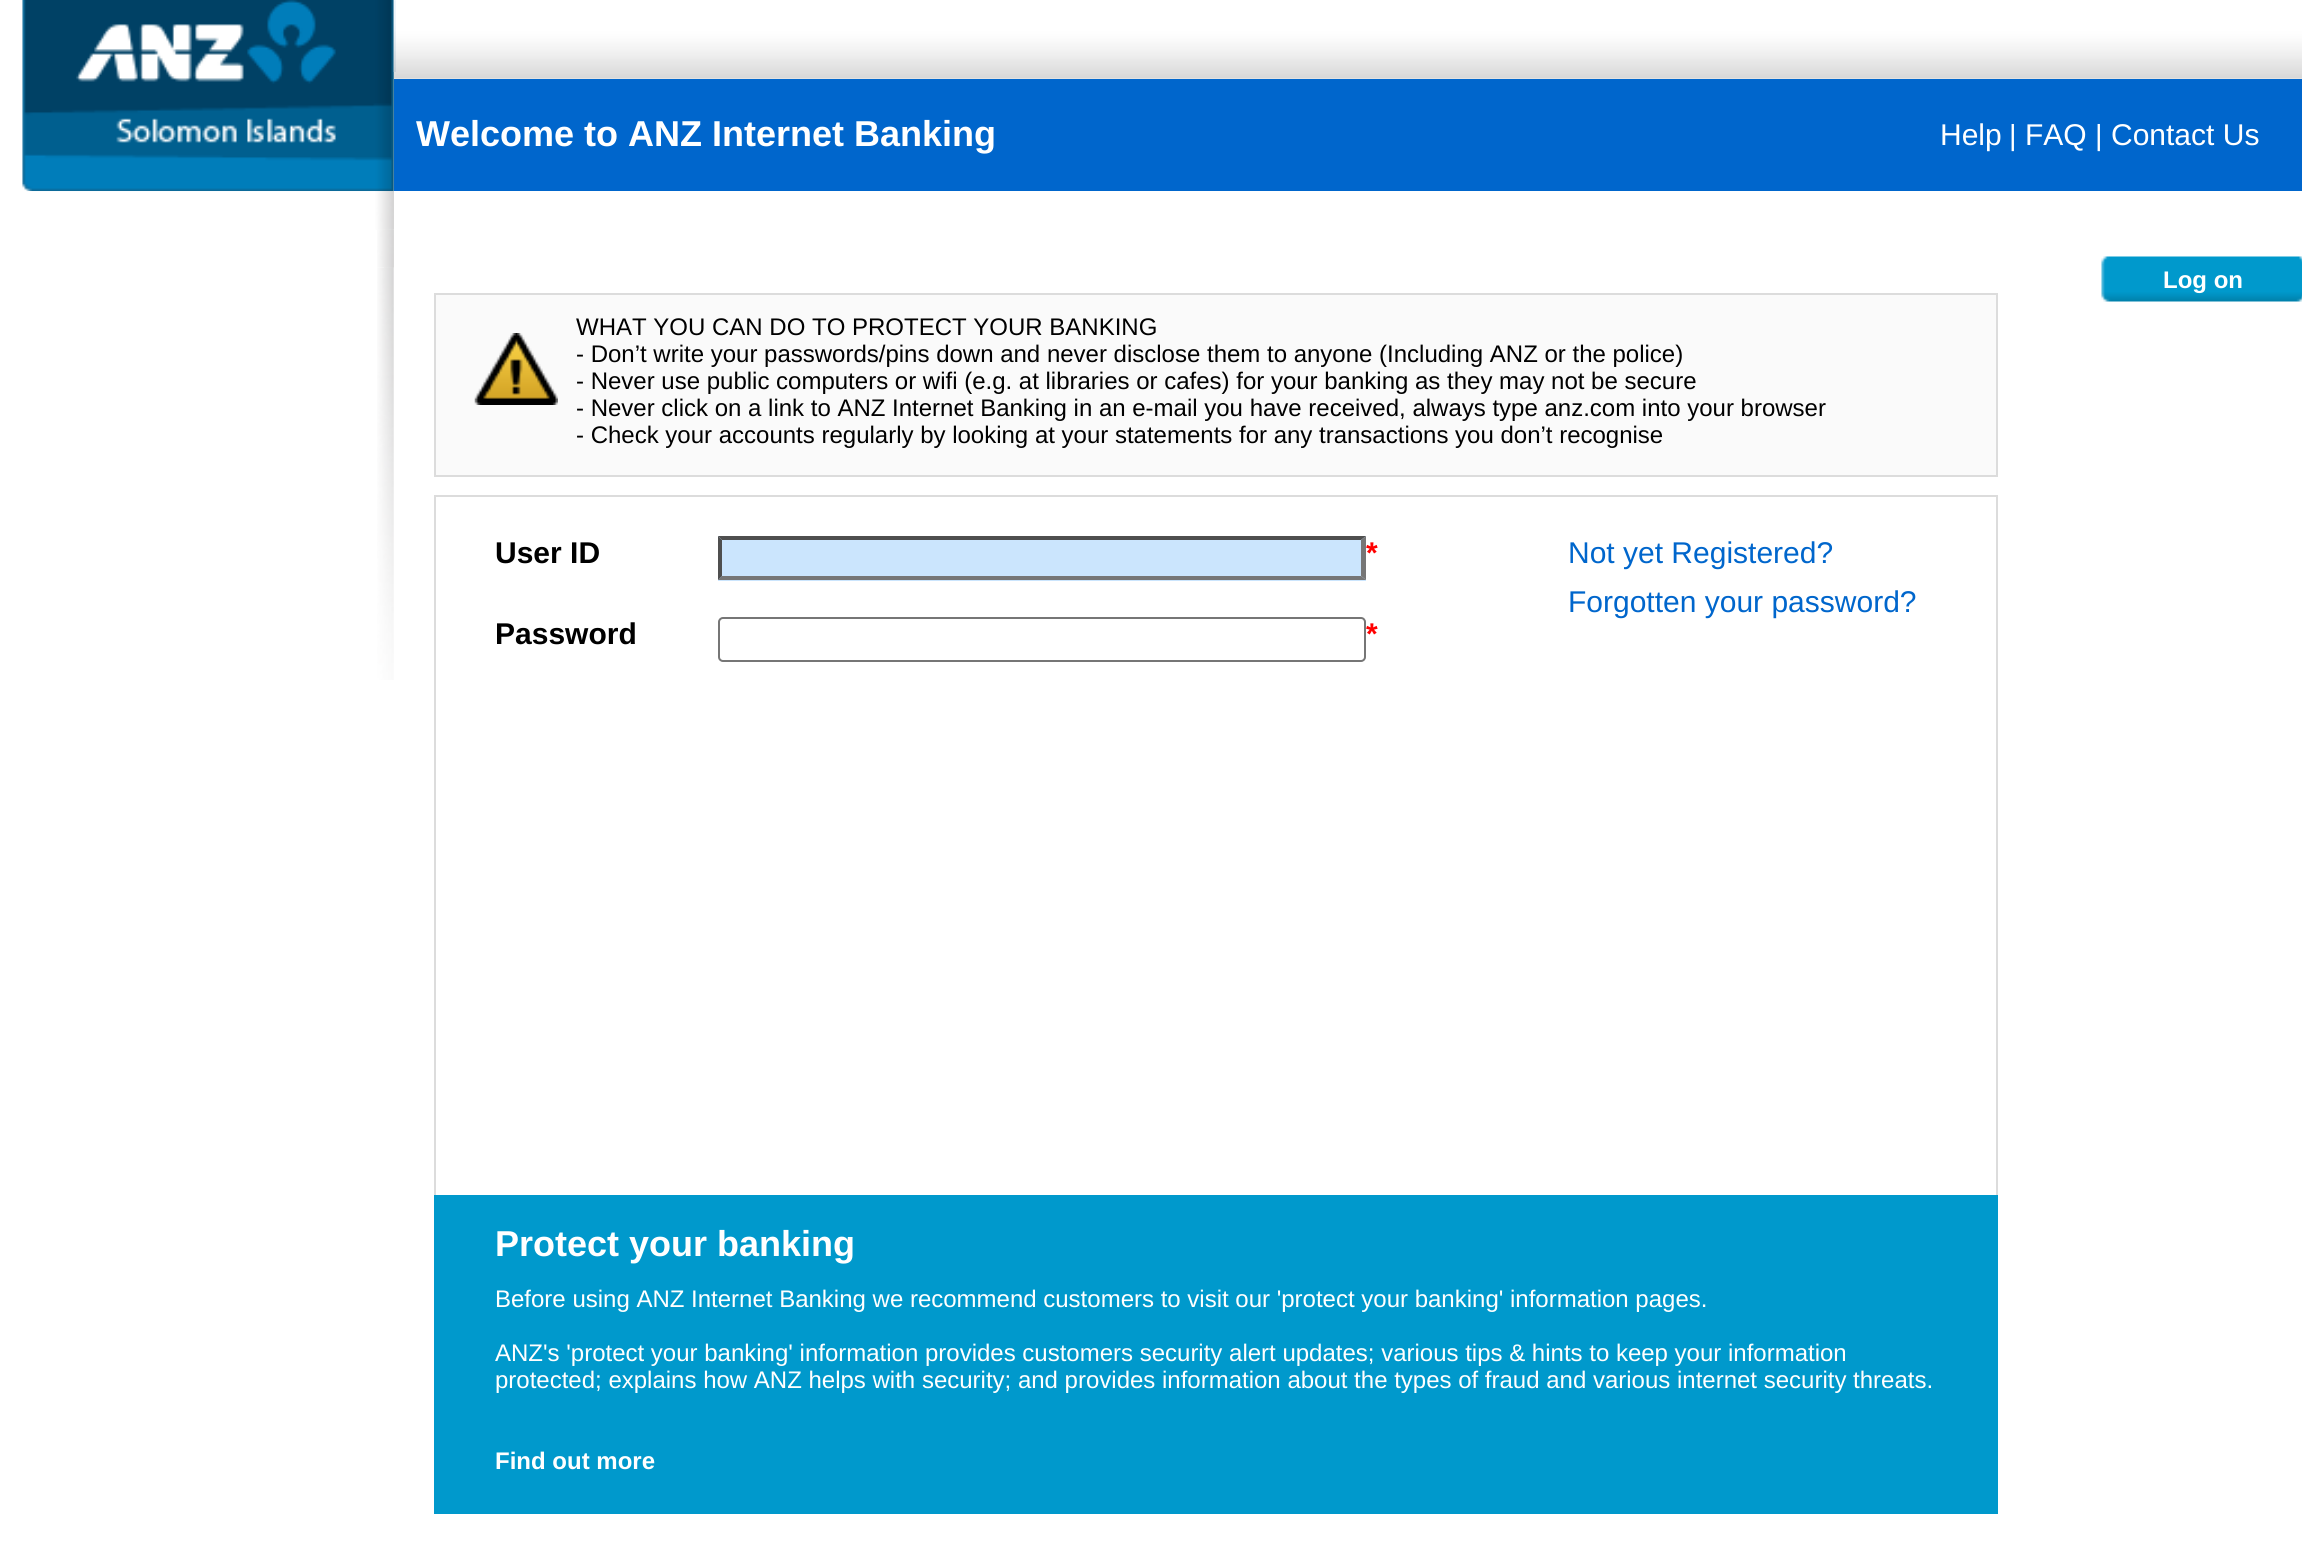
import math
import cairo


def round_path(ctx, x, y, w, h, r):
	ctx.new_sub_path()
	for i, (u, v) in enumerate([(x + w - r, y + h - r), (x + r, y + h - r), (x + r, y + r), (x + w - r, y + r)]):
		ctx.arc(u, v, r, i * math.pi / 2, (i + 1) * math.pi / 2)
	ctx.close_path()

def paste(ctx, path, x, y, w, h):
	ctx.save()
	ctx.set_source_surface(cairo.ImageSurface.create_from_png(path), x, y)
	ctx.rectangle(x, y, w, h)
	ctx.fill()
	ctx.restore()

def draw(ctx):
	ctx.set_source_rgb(1, 1, 1)
	ctx.paint()
	paste(ctx, 'media/4.png', 377, 191, 17, 39)
	paste(ctx, 'media/1.png', 22, 0, 372, 192)
	paste(ctx, 'media/2.png', 394, 0, 1908, 79)
	paste(ctx, 'media/3.png', 393, 0, 3, 72)
	ctx.set_source_rgb(0, 0.4, 0.8)
	ctx.rectangle(394, 79, 1908, 112)
	ctx.fill()
	ctx.select_font_face('Liberation Sans', cairo.FONT_SLANT_NORMAL, cairo.FONT_WEIGHT_BOLD)
	ctx.set_font_size(36)
	ctx.set_source_rgb(1, 1, 1)
	ctx.move_to(416, 146)
	ctx.show_text('Welcome to ANZ Internet Banking')
	ctx.select_font_face('Liberation Sans')
	ctx.set_font_size(30)
	ctx.move_to(1940, 145)
	ctx.show_text('Help')
	ctx.set_font_size(29)
	ctx.move_to(2009, 145)
	ctx.show_text('|')
	ctx.set_font_size(30)
	ctx.move_to(2025, 145)
	ctx.show_text('FAQ')
	ctx.set_font_size(29)
	ctx.move_to(2095, 145)
	ctx.show_text('|')
	ctx.set_font_size(30)
	ctx.move_to(2111, 145)
	ctx.show_text('Contact Us')
	paste(ctx, 'media/7.png', 377, 229, 17, 39)
	paste(ctx, 'media/5.png', 26, 191, 368, 39)
	paste(ctx, 'media/6.png', 28, 191, 366, 39)
	paste(ctx, 'media/8.png', 384, 230, 10, 38)
	paste(ctx, 'media/9.png', 377, 268, 17, 412)
	paste(ctx, 'media/10.png', 2101, 256, 201, 46)
	ctx.select_font_face('Liberation Sans', cairo.FONT_SLANT_NORMAL, cairo.FONT_WEIGHT_BOLD)
	ctx.set_font_size(24)
	ctx.move_to(2163, 288)
	ctx.show_text('Log on')
	ctx.set_source_rgb(0.98, 0.98, 0.98)
	ctx.rectangle(435, 294, 1562, 182)
	ctx.fill_preserve()
	ctx.set_source_rgb(0.863, 0.863, 0.863)
	ctx.stroke()
	paste(ctx, 'media/11.png', 474, 333, 84, 72)
	ctx.select_font_face('Liberation Sans')
	ctx.set_source_rgb(0, 0, 0)
	for x, y, s in [
		(576, 335, 'WHAT YOU CAN DO TO PROTECT YOUR BANKING'),
		(576, 362, '- Don’t write your passwords/pins down and never disclose them to anyone (Including ANZ or the police)'),
		(576, 389, '- Never use public computers or wifi (e.g. at libraries or cafes) for your banking as they may not be secure'),
		(576, 416, '- Never click on a link to ANZ Internet Banking in an e-mail you have received, always type anz.com into your browser'),
		(576, 443, '- Check your accounts regularly by looking at your statements for any transactions you don’t recognise'),
	]:
		ctx.move_to(x, y)
		ctx.show_text(s)
	ctx.rectangle(435, 496, 1562, 745)
	ctx.set_source_rgb(0.863, 0.863, 0.863)
	ctx.stroke()
	ctx.select_font_face('Liberation Sans', cairo.FONT_SLANT_NORMAL, cairo.FONT_WEIGHT_BOLD)
	ctx.set_font_size(30)
	ctx.set_source_rgb(0, 0, 0)
	ctx.move_to(495, 563)
	ctx.show_text('User ID')
	ctx.set_source_rgb(0.796, 0.898, 0.992)
	ctx.rectangle(718, 536, 648, 45)
	ctx.fill()
	ctx.set_source_rgb(0.31, 0.31, 0.31)
	ctx.new_path()
	ctx.move_to(718, 536)
	ctx.line_to(1366, 536)
	ctx.line_to(1361, 540)
	ctx.line_to(722, 540)
	ctx.close_path()
	ctx.fill()
	ctx.set_source_rgb(0.463, 0.463, 0.463)
	ctx.new_path()
	ctx.move_to(1366, 536)
	ctx.line_to(1366, 580)
	ctx.line_to(1361, 576)
	ctx.line_to(1361, 540)
	ctx.close_path()
	ctx.fill()
	ctx.new_path()
	ctx.move_to(1366, 580)
	ctx.line_to(718, 580)
	ctx.line_to(722, 576)
	ctx.line_to(1361, 576)
	ctx.close_path()
	ctx.fill()
	ctx.set_source_rgb(0.31, 0.31, 0.31)
	ctx.new_path()
	ctx.move_to(718, 580)
	ctx.line_to(718, 536)
	ctx.line_to(722, 540)
	ctx.line_to(722, 576)
	ctx.close_path()
	ctx.fill()
	ctx.set_source_rgb(1, 0, 0)
	ctx.move_to(1366, 563)
	ctx.show_text('*')
	ctx.select_font_face('Liberation Sans')
	ctx.set_source_rgb(0, 0.4, 0.8)
	ctx.move_to(1568, 563)
	ctx.show_text('Not yet Registered?')
	ctx.move_to(1568, 612)
	ctx.show_text('Forgotten your password?')
	ctx.select_font_face('Liberation Sans', cairo.FONT_SLANT_NORMAL, cairo.FONT_WEIGHT_BOLD)
	ctx.set_source_rgb(0, 0, 0)
	ctx.move_to(495, 644)
	ctx.show_text('Password')
	round_path(ctx, 719, 618, 646, 43, 4)
	ctx.set_source_rgb(0.463, 0.463, 0.463)
	ctx.stroke()
	ctx.set_source_rgb(1, 0, 0)
	ctx.move_to(1366, 644)
	ctx.show_text('*')
	ctx.set_source_rgb(0, 0.6, 0.8)
	ctx.rectangle(434, 1195, 1564, 319)
	ctx.fill()
	ctx.set_font_size(36)
	ctx.set_source_rgb(1, 1, 1)
	ctx.move_to(495, 1256)
	ctx.show_text('Protect your banking')
	ctx.select_font_face('Liberation Sans')
	ctx.set_font_size(24)
	for x, y, s in [
		(495, 1307, 'Before using ANZ Internet Banking we recommend customers to visit our \'protect your banking\' information pages.'),
		(495, 1361, 'ANZ\'s \'protect your banking\' information provides customers security alert updates; various tips & hints to keep your information'),
		(495, 1388, 'protected; explains how ANZ helps with security; and provides information about the types of fraud and various internet security threats.'),
	]:
		ctx.move_to(x, y)
		ctx.show_text(s)
	ctx.select_font_face('Liberation Sans', cairo.FONT_SLANT_NORMAL, cairo.FONT_WEIGHT_BOLD)
	ctx.move_to(495, 1469)
	ctx.show_text('Find out more')


surface = cairo.ImageSurface(cairo.FORMAT_RGB24, 2302, 1563)
ctx = cairo.Context(surface)
options = cairo.FontOptions()
options.set_hint_metrics(cairo.HINT_METRICS_OFF)
options.set_hint_style(cairo.HINT_STYLE_NONE)
ctx.set_font_options(options)
ctx.set_miter_limit(4)
draw(ctx)
surface.write_to_png('image.png')
